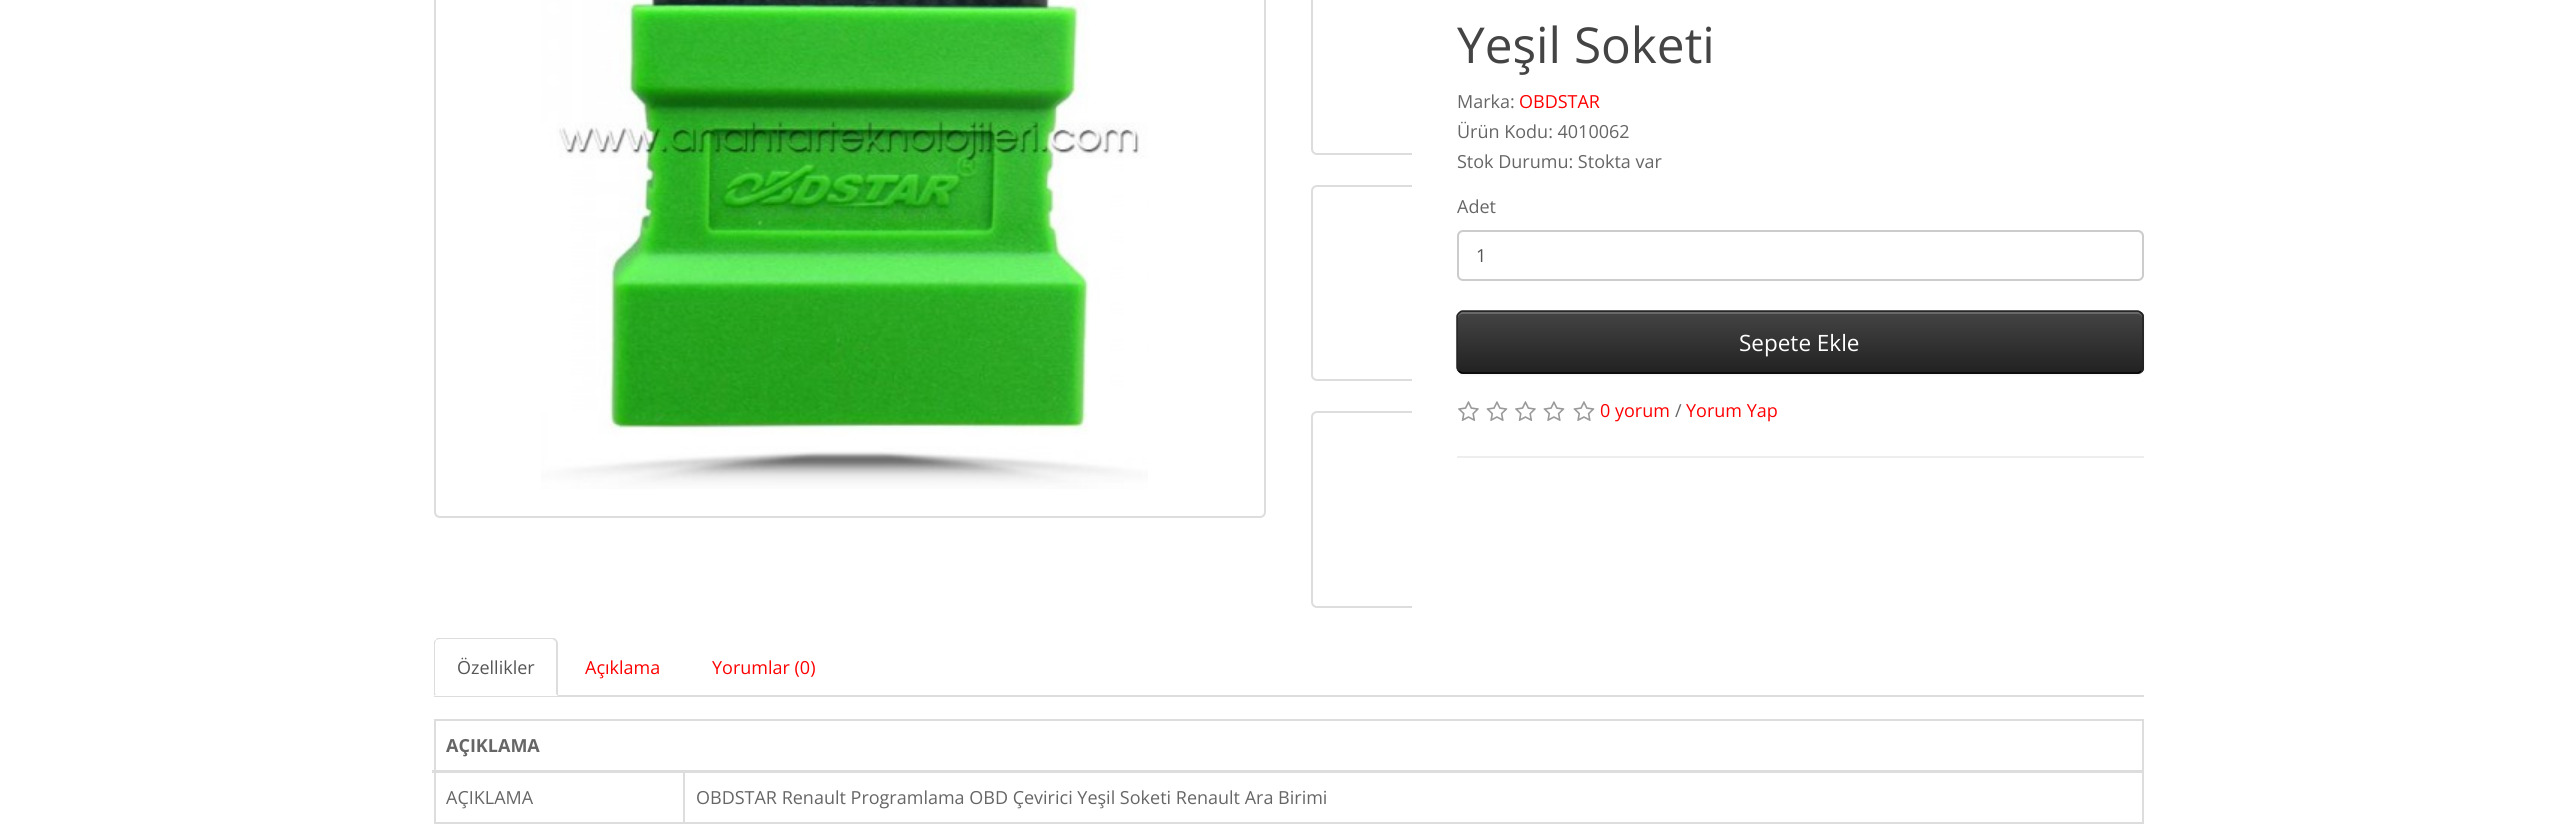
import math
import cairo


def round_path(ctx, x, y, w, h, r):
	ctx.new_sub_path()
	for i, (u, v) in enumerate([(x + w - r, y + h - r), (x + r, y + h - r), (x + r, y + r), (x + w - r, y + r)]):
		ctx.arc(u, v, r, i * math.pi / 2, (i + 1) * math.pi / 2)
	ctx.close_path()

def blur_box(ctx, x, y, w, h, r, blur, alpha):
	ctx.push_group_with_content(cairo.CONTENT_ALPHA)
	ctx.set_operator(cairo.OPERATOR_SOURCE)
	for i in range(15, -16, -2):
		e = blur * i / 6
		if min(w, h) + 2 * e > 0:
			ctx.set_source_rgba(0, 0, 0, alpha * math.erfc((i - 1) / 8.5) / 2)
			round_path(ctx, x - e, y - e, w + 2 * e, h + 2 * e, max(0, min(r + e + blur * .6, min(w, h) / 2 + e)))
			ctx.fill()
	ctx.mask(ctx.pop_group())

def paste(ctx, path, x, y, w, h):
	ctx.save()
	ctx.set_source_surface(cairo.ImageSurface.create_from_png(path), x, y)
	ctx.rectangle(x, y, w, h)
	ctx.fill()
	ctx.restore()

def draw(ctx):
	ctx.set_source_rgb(1, 1, 1)
	ctx.paint()
	round_path(ctx, 435, -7, 830, 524, 5)
	ctx.set_source_rgb(0.867, 0.867, 0.867)
	ctx.stroke()
	paste(ctx, 'media/1.png', 541, 0, 607, 489)
	ctx.save()
	ctx.rectangle(1281, 0, 131, 638)
	ctx.clip()
	round_path(ctx, 1312, -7, 115, 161, 5)
	ctx.stroke()
	round_path(ctx, 1312, 186, 115, 194, 5)
	ctx.stroke()
	round_path(ctx, 1312, 412, 115, 195, 5)
	ctx.stroke()
	ctx.restore()
	ctx.select_font_face('Open Sans')
	ctx.set_font_size(49.5)
	ctx.set_source_rgb(0.267, 0.267, 0.267)
	ctx.move_to(1457, 63)
	ctx.show_text('Yeşil Soketi')
	ctx.set_font_size(18)
	ctx.set_source_rgb(0.4, 0.4, 0.4)
	ctx.move_to(1457, 108)
	ctx.show_text('Marka:')
	ctx.set_source_rgb(1, 0, 0)
	ctx.move_to(1519, 108)
	ctx.show_text('OBDSTAR')
	ctx.set_source_rgb(0.4, 0.4, 0.4)
	for x, y, s in [
		(1457, 138, 'Ürün Kodu: 4010062'),
		(1457, 168, 'Stok Durumu: Stokta var'),
		(1457, 213, 'Adet'),
	]:
		ctx.move_to(x, y)
		ctx.show_text(s)
	ctx.set_source_rgb(0.925, 0.925, 0.925)
	ctx.new_path()
	ctx.move_to(1462, 232)
	ctx.line_to(2138, 232)
	ctx.curve_to(2140, 232, 2142, 235, 2142, 237)
	ctx.line_to(2142, 236)
	ctx.curve_to(2142, 233, 2140, 231, 2137, 231)
	ctx.line_to(1463, 231)
	ctx.curve_to(1460, 231, 1458, 233, 1458, 236)
	ctx.line_to(1458, 237)
	ctx.curve_to(1458, 235, 1460, 232, 1462, 232)
	ctx.close_path()
	ctx.fill()
	round_path(ctx, 1458, 231, 685, 49, 5)
	ctx.set_source_rgb(0.8, 0.8, 0.8)
	ctx.stroke()
	ctx.set_source_rgb(0.333, 0.333, 0.333)
	ctx.move_to(1476, 262)
	ctx.show_text('1')
	ctx.set_source_rgb(0, 0, 0)
	blur_box(ctx, 1457, 312, 687, 63, 6, 1.5, 0.05)
	ctx.set_source_rgb(0.212, 0.212, 0.212)
	round_path(ctx, 1457, 311, 687, 63, 6)
	ctx.fill()
	ctx.save()
	round_path(ctx, 1457, 311, 687, 63, 6)
	ctx.clip()
	gradient = cairo.LinearGradient(1800, 312, 1800, 372)
	gradient.add_color_stop_rgba(0, 0.267, 0.267, 0.267, 1)
	gradient.add_color_stop_rgba(1, 0.133, 0.133, 0.133, 1)
	ctx.set_source(gradient)
	ctx.rectangle(1457, 312, 687, 60)
	ctx.fill()
	ctx.restore()
	ctx.set_source_rgb(0.412, 0.412, 0.412)
	ctx.new_path()
	ctx.move_to(1462, 314)
	ctx.line_to(2138, 314)
	ctx.curve_to(2140, 314, 2142, 316, 2142, 318)
	ctx.line_to(2142, 317)
	ctx.curve_to(2142, 314, 2140, 312, 2137, 312)
	ctx.line_to(1463, 312)
	ctx.curve_to(1460, 312, 1458, 314, 1458, 317)
	ctx.line_to(1458, 318)
	ctx.curve_to(1458, 316, 1460, 314, 1462, 314)
	ctx.close_path()
	ctx.fill()
	ctx.new_path()
	ctx.move_to(2141, 371)
	ctx.curve_to(2140, 372, 2139, 373, 2137.5, 373)
	ctx.line_to(1462.5, 373)
	ctx.curve_to(1461, 373, 1460, 372, 1459, 371)
	ctx.set_source_rgb(0, 0, 0)
	ctx.set_line_width(1.5)
	ctx.stroke()
	ctx.new_path()
	ctx.move_to(1459, 371)
	ctx.curve_to(1458, 370, 1457, 369, 1457, 367.5)
	ctx.line_to(1457, 316.5)
	ctx.curve_to(1457, 315, 1458, 314, 1459, 313)
	ctx.curve_to(1460, 312, 1461, 311, 1462.5, 311)
	ctx.line_to(2137.5, 311)
	ctx.curve_to(2139, 311, 2140, 312, 2141, 313)
	ctx.curve_to(2142, 314, 2143, 315, 2143, 316.5)
	ctx.line_to(2143, 367.5)
	ctx.curve_to(2143, 369, 2142, 370, 2141, 371)
	ctx.set_source_rgb(0.133, 0.133, 0.133)
	ctx.stroke()
	ctx.set_font_size(22.5)
	ctx.set_source_rgb(1, 1, 1)
	ctx.move_to(1739, 351)
	ctx.show_text('Sepete Ekle')
	paste(ctx, 'media/2.png', 1458, 401, 21, 20)
	paste(ctx, 'media/3.png', 1486, 401, 22, 20)
	paste(ctx, 'media/2.png', 1515, 401, 21, 20)
	paste(ctx, 'media/3.png', 1543, 401, 22, 20)
	paste(ctx, 'media/3.png', 1573, 401, 22, 20)
	ctx.set_font_size(18)
	ctx.set_source_rgb(1, 0, 0)
	ctx.move_to(1600, 417)
	ctx.show_text('0 yorum')
	ctx.set_source_rgb(0.4, 0.4, 0.4)
	ctx.move_to(1675, 417)
	ctx.show_text('/')
	ctx.set_source_rgb(1, 0, 0)
	ctx.move_to(1686, 417)
	ctx.show_text('Yorum Yap')
	ctx.set_source_rgb(0.933, 0.933, 0.933)
	ctx.rectangle(1457, 456, 687, 2)
	ctx.fill()
	ctx.set_source_rgb(0.867, 0.867, 0.867)
	ctx.rectangle(434, 695, 1710, 2)
	ctx.fill()
	ctx.set_source_rgb(1, 1, 1)
	ctx.new_path()
	ctx.move_to(440, 638)
	ctx.line_to(552, 638)
	ctx.curve_to(555.5, 638, 558, 640.5, 558, 644)
	ctx.line_to(558, 696)
	ctx.line_to(434, 696)
	ctx.line_to(434, 644)
	ctx.curve_to(434, 640.5, 436.5, 638, 440, 638)
	ctx.close_path()
	ctx.fill()
	ctx.set_source_rgb(0.867, 0.867, 0.867)
	ctx.new_path()
	ctx.move_to(440, 638)
	ctx.curve_to(438, 638, 436, 638, 436, 640)
	ctx.curve_to(437, 640, 438, 639, 440, 639)
	ctx.line_to(552, 639)
	ctx.curve_to(553, 639, 554, 640, 555, 641)
	ctx.line_to(556, 639)
	ctx.curve_to(555, 638, 553, 638, 552, 638)
	ctx.close_path()
	ctx.fill()
	ctx.new_path()
	ctx.move_to(556, 639)
	ctx.curve_to(557, 640, 558, 642, 558, 644)
	ctx.line_to(558, 696)
	ctx.line_to(556, 694)
	ctx.line_to(556, 644)
	ctx.curve_to(556, 643, 556, 641, 555, 641)
	ctx.close_path()
	ctx.fill()
	ctx.new_path()
	ctx.move_to(436, 640)
	ctx.curve_to(434, 640, 434, 642, 434, 644)
	ctx.line_to(434, 696)
	ctx.line_to(436, 694)
	ctx.line_to(435, 694)
	ctx.line_to(435, 644)
	ctx.curve_to(435, 642, 436, 641, 436, 640)
	ctx.close_path()
	ctx.fill()
	ctx.set_source_rgb(0.333, 0.333, 0.333)
	ctx.move_to(457, 674)
	ctx.show_text('Özellikler')
	ctx.set_source_rgb(1, 0, 0)
	ctx.move_to(585, 674)
	ctx.show_text('Açıklama')
	ctx.move_to(712, 674)
	ctx.show_text('Yorumlar (0)')
	ctx.set_source_rgb(0.867, 0.867, 0.867)
	ctx.rectangle(434, 719, 1710, 2)
	ctx.rectangle(2142, 719, 2, 105)
	ctx.rectangle(434, 822, 1710, 2)
	ctx.rectangle(434, 719, 2, 105)
	ctx.rectangle(683, 771, 2, 53)
	ctx.rectangle(432, 770, 1712, 3)
	ctx.fill()
	ctx.select_font_face('Open Sans', cairo.FONT_SLANT_NORMAL, cairo.FONT_WEIGHT_BOLD)
	ctx.set_source_rgb(0.4, 0.4, 0.4)
	ctx.move_to(446, 752)
	ctx.show_text('AÇIKLAMA')
	ctx.select_font_face('Open Sans')
	ctx.move_to(446, 804)
	ctx.show_text('AÇIKLAMA')
	ctx.move_to(696, 804)
	ctx.show_text('OBDSTAR Renault Programlama OBD Çevirici Yeşil Soketi Renault Ara Birimi')


surface = cairo.ImageSurface(cairo.FORMAT_RGB24, 2575, 829)
ctx = cairo.Context(surface)
options = cairo.FontOptions()
options.set_hint_metrics(cairo.HINT_METRICS_OFF)
options.set_hint_style(cairo.HINT_STYLE_NONE)
ctx.set_font_options(options)
ctx.set_miter_limit(4)
draw(ctx)
surface.write_to_png('image.png')
